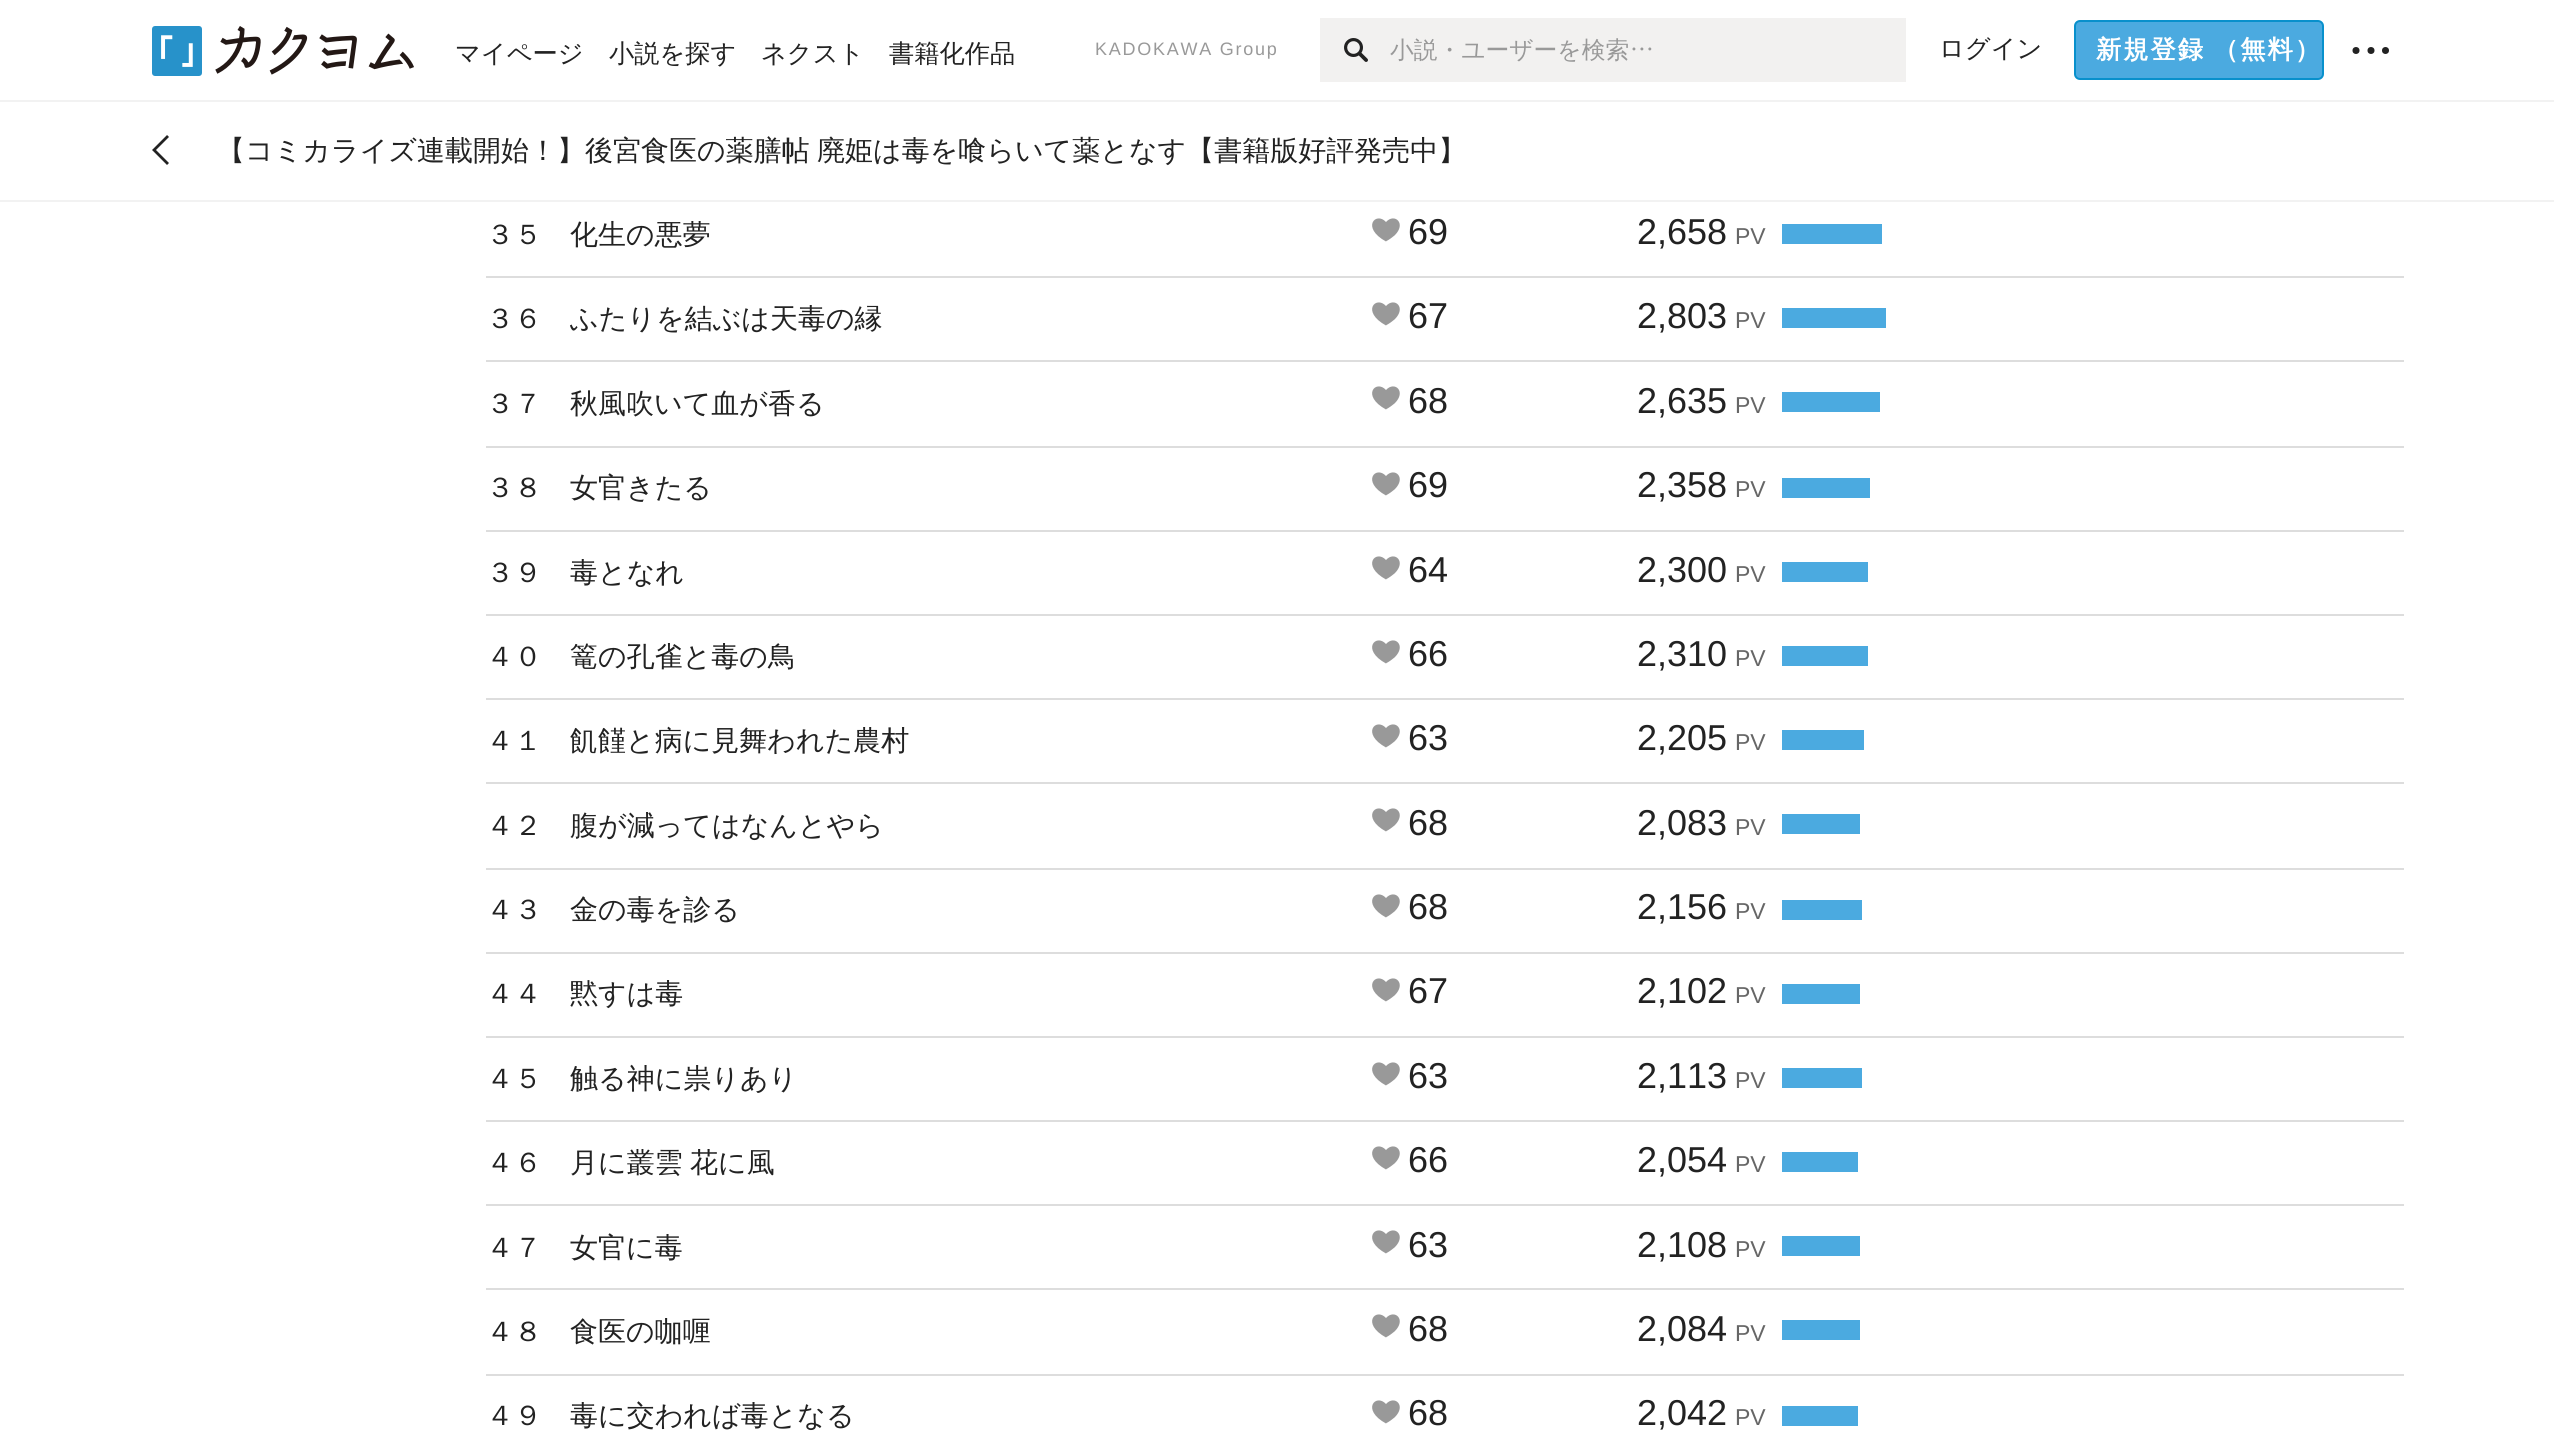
import math
import cairo


def write_spaced(ctx, x, y, s, letter, word):
	ctx.move_to(x, y)
	for ch in s:
		ctx.show_text(ch)
		ctx.rel_move_to(letter + word * (ch == ' '), 0)

def round_path(ctx, x, y, w, h, r):
	ctx.new_sub_path()
	for i, (u, v) in enumerate([(x + w - r, y + h - r), (x + r, y + h - r), (x + r, y + r), (x + w - r, y + r)]):
		ctx.arc(u, v, r, i * math.pi / 2, (i + 1) * math.pi / 2)
	ctx.close_path()

def paste(ctx, path, x, y, w, h):
	ctx.save()
	ctx.set_source_surface(cairo.ImageSurface.create_from_png(path), x, y)
	ctx.rectangle(x, y, w, h)
	ctx.fill()
	ctx.restore()

def draw(ctx):
	ctx.set_source_rgb(1, 1, 1)
	ctx.paint()
	ctx.set_source_rgb(0.949, 0.949, 0.949)
	ctx.rectangle(0, 100, 2554, 2)
	ctx.fill()
	paste(ctx, 'media/1.png', 152, 26, 262, 50)
	ctx.select_font_face('WenQuanYi Zen Hei Medium')
	ctx.set_font_size(25.25)
	ctx.set_source_rgb(0.133, 0.133, 0.133)
	for x, y, s in [
		(455, 62, 'マイページ'),
		(609, 62, '小説を探す'),
		(761, 62, 'ネクスト'),
		(889, 62, '書籍化作品'),
	]:
		ctx.move_to(x, y)
		ctx.show_text(s)
	ctx.select_font_face('Liberation Sans')
	ctx.set_font_size(18)
	ctx.set_source_rgb(0.6, 0.6, 0.6)
	write_spaced(ctx, 1095, 55, 'KADOKAWA Group', 1.75, 0)
	ctx.set_source_rgb(0.949, 0.945, 0.941)
	ctx.rectangle(1320, 18, 586, 64)
	ctx.fill()
	paste(ctx, 'media/2.png', 1344, 38, 24, 24)
	ctx.select_font_face('WenQuanYi Zen Hei Medium')
	ctx.set_font_size(23.75)
	ctx.set_source_rgb(0.6, 0.6, 0.6)
	ctx.move_to(1390, 58)
	ctx.show_text('小説・ユーザーを検索')
	paste(ctx, 'media/3.png', 1632, 47, 20, 4)
	ctx.set_font_size(25.25)
	ctx.set_source_rgb(0.133, 0.133, 0.133)
	ctx.move_to(1939, 57)
	ctx.show_text('ログイン')
	ctx.set_source_rgb(0.294, 0.667, 0.878)
	round_path(ctx, 2075, 21, 248, 58, 5)
	ctx.fill_preserve()
	ctx.set_source_rgb(0.035, 0.565, 0.8)
	ctx.stroke()
	ctx.select_font_face('WenQuanYi Zen Hei', cairo.FONT_SLANT_NORMAL, cairo.FONT_WEIGHT_BOLD)
	ctx.set_source_rgb(1, 1, 1)
	write_spaced(ctx, 2096, 58, '新規登録', 2, 0)
	write_spaced(ctx, 2213, 58, '（無料）', 2, 0)
	ctx.set_source_rgb(0.133, 0.133, 0.133)
	ctx.new_path()
	ctx.arc(2356, 50.5, 3.5, 0, 2 * math.pi)
	ctx.fill()
	ctx.arc(2371, 50.5, 3.5, 0, 2 * math.pi)
	ctx.fill()
	ctx.arc(2385.5, 50.5, 3.5, 0, 2 * math.pi)
	ctx.fill()
	ctx.set_source_rgb(0.949, 0.949, 0.949)
	ctx.rectangle(0, 200, 2554, 2)
	ctx.fill()
	ctx.new_path()
	ctx.move_to(168, 164)
	ctx.line_to(154, 150)
	ctx.line_to(168, 136)
	ctx.set_source_rgb(0.133, 0.133, 0.133)
	ctx.set_line_width(2.8)
	ctx.stroke()
	ctx.select_font_face('WenQuanYi Zen Hei Medium')
	ctx.set_font_size(28)
	write_spaced(ctx, 217, 160, '【コミカライズ連載開始！】後宮食医の薬膳帖 廃姫は毒を喰らいて薬となす【書籍版好評発売中】', 0, -1)
	ctx.set_source_rgb(0.867, 0.867, 0.867)
	ctx.rectangle(486, 276, 1918, 2)
	ctx.fill()
	ctx.set_source_rgb(0.133, 0.133, 0.133)
	ctx.move_to(486, 244)
	ctx.show_text('３５　化生の悪夢')
	ctx.set_source_rgb(0.6, 0.6, 0.6)
	ctx.new_path()
	ctx.move_to(1386, 241.5)
	ctx.curve_to(1360.5, 227.5, 1376, 211, 1386, 222)
	ctx.curve_to(1394.5, 212.5, 1407, 223.5, 1394.5, 235.5)
	ctx.curve_to(1392, 237.5, 1389.5, 239.5, 1386.5, 241)
	ctx.close_path()
	ctx.fill()
	ctx.select_font_face('Liberation Sans')
	ctx.set_font_size(36)
	ctx.set_source_rgb(0.133, 0.133, 0.133)
	ctx.move_to(1408, 244)
	ctx.show_text('69')
	ctx.move_to(1637, 244)
	ctx.show_text('2,658')
	ctx.set_font_size(23)
	ctx.set_source_rgb(0.4, 0.4, 0.4)
	ctx.move_to(1735, 244)
	ctx.show_text('PV')
	ctx.set_source_rgb(0.294, 0.667, 0.878)
	ctx.rectangle(1782, 224, 100, 20)
	ctx.fill()
	ctx.set_source_rgb(0.867, 0.867, 0.867)
	ctx.rectangle(486, 360, 1918, 2)
	ctx.fill()
	ctx.select_font_face('WenQuanYi Zen Hei Medium')
	ctx.set_font_size(28)
	ctx.set_source_rgb(0.133, 0.133, 0.133)
	ctx.move_to(486, 328)
	ctx.show_text('３６　ふたりを結ぶは天毒の縁')
	ctx.set_source_rgb(0.6, 0.6, 0.6)
	ctx.new_path()
	ctx.move_to(1386, 325.5)
	ctx.curve_to(1360.5, 311.5, 1376, 295, 1386, 306)
	ctx.curve_to(1394.5, 296.5, 1407, 307.5, 1394.5, 319.5)
	ctx.curve_to(1392, 321.5, 1389.5, 323.5, 1386.5, 325)
	ctx.close_path()
	ctx.fill()
	ctx.select_font_face('Liberation Sans')
	ctx.set_font_size(36)
	ctx.set_source_rgb(0.133, 0.133, 0.133)
	ctx.move_to(1408, 328)
	ctx.show_text('67')
	ctx.move_to(1637, 328)
	ctx.show_text('2,803')
	ctx.set_font_size(23)
	ctx.set_source_rgb(0.4, 0.4, 0.4)
	ctx.move_to(1735, 328)
	ctx.show_text('PV')
	ctx.set_source_rgb(0.294, 0.667, 0.878)
	ctx.rectangle(1782, 308, 104, 20)
	ctx.fill()
	ctx.set_source_rgb(0.867, 0.867, 0.867)
	ctx.rectangle(486, 446, 1918, 2)
	ctx.fill()
	ctx.select_font_face('WenQuanYi Zen Hei Medium')
	ctx.set_font_size(28)
	ctx.set_source_rgb(0.133, 0.133, 0.133)
	ctx.move_to(486, 413)
	ctx.show_text('３７　秋風吹いて血が香る')
	ctx.set_source_rgb(0.6, 0.6, 0.6)
	ctx.new_path()
	ctx.move_to(1386, 409.5)
	ctx.curve_to(1360.5, 395.5, 1376, 379, 1386, 390)
	ctx.curve_to(1394.5, 380.5, 1407, 391.5, 1394.5, 403.5)
	ctx.curve_to(1392, 405.5, 1389.5, 407.5, 1386.5, 409)
	ctx.close_path()
	ctx.fill()
	ctx.select_font_face('Liberation Sans')
	ctx.set_font_size(36)
	ctx.set_source_rgb(0.133, 0.133, 0.133)
	ctx.move_to(1408, 413)
	ctx.show_text('68')
	ctx.move_to(1637, 413)
	ctx.show_text('2,635')
	ctx.set_font_size(23)
	ctx.set_source_rgb(0.4, 0.4, 0.4)
	ctx.move_to(1735, 413)
	ctx.show_text('PV')
	ctx.set_source_rgb(0.294, 0.667, 0.878)
	ctx.rectangle(1782, 392, 98, 20)
	ctx.fill()
	ctx.set_source_rgb(0.867, 0.867, 0.867)
	ctx.rectangle(486, 530, 1918, 2)
	ctx.fill()
	ctx.select_font_face('WenQuanYi Zen Hei Medium')
	ctx.set_font_size(28)
	ctx.set_source_rgb(0.133, 0.133, 0.133)
	ctx.move_to(486, 497)
	ctx.show_text('３８　女官きたる')
	ctx.set_source_rgb(0.6, 0.6, 0.6)
	ctx.new_path()
	ctx.move_to(1386, 495.5)
	ctx.curve_to(1360.5, 481.5, 1376, 465, 1386, 476)
	ctx.curve_to(1394.5, 466.5, 1407, 477.5, 1394.5, 489.5)
	ctx.curve_to(1392, 491.5, 1389.5, 493.5, 1386.5, 495)
	ctx.close_path()
	ctx.fill()
	ctx.select_font_face('Liberation Sans')
	ctx.set_font_size(36)
	ctx.set_source_rgb(0.133, 0.133, 0.133)
	ctx.move_to(1408, 497)
	ctx.show_text('69')
	ctx.move_to(1637, 497)
	ctx.show_text('2,358')
	ctx.set_font_size(23)
	ctx.set_source_rgb(0.4, 0.4, 0.4)
	ctx.move_to(1735, 497)
	ctx.show_text('PV')
	ctx.set_source_rgb(0.294, 0.667, 0.878)
	ctx.rectangle(1782, 478, 88, 20)
	ctx.fill()
	ctx.set_source_rgb(0.867, 0.867, 0.867)
	ctx.rectangle(486, 614, 1918, 2)
	ctx.fill()
	ctx.select_font_face('WenQuanYi Zen Hei Medium')
	ctx.set_font_size(28)
	ctx.set_source_rgb(0.133, 0.133, 0.133)
	ctx.move_to(486, 582)
	ctx.show_text('３９　毒となれ')
	ctx.set_source_rgb(0.6, 0.6, 0.6)
	ctx.new_path()
	ctx.move_to(1386, 579.5)
	ctx.curve_to(1360.5, 565.5, 1376, 549, 1386, 560)
	ctx.curve_to(1394.5, 550.5, 1407, 561.5, 1394.5, 573.5)
	ctx.curve_to(1392, 575.5, 1389.5, 577.5, 1386.5, 579)
	ctx.close_path()
	ctx.fill()
	ctx.select_font_face('Liberation Sans')
	ctx.set_font_size(36)
	ctx.set_source_rgb(0.133, 0.133, 0.133)
	ctx.move_to(1408, 582)
	ctx.show_text('64')
	ctx.move_to(1637, 582)
	ctx.show_text('2,300')
	ctx.set_font_size(23)
	ctx.set_source_rgb(0.4, 0.4, 0.4)
	ctx.move_to(1735, 582)
	ctx.show_text('PV')
	ctx.set_source_rgb(0.294, 0.667, 0.878)
	ctx.rectangle(1782, 562, 86, 20)
	ctx.fill()
	ctx.set_source_rgb(0.867, 0.867, 0.867)
	ctx.rectangle(486, 698, 1918, 2)
	ctx.fill()
	ctx.select_font_face('WenQuanYi Zen Hei Medium')
	ctx.set_font_size(28)
	ctx.set_source_rgb(0.133, 0.133, 0.133)
	ctx.move_to(486, 666)
	ctx.show_text('４０　篭の孔雀と毒の鳥')
	ctx.set_source_rgb(0.6, 0.6, 0.6)
	ctx.new_path()
	ctx.move_to(1386, 663.5)
	ctx.curve_to(1360.5, 649.5, 1376, 633, 1386, 644)
	ctx.curve_to(1394.5, 634.5, 1407, 645.5, 1394.5, 657.5)
	ctx.curve_to(1392, 659.5, 1389.5, 661.5, 1386.5, 663)
	ctx.close_path()
	ctx.fill()
	ctx.select_font_face('Liberation Sans')
	ctx.set_font_size(36)
	ctx.set_source_rgb(0.133, 0.133, 0.133)
	ctx.move_to(1408, 666)
	ctx.show_text('66')
	ctx.move_to(1637, 666)
	ctx.show_text('2,310')
	ctx.set_font_size(23)
	ctx.set_source_rgb(0.4, 0.4, 0.4)
	ctx.move_to(1735, 666)
	ctx.show_text('PV')
	ctx.set_source_rgb(0.294, 0.667, 0.878)
	ctx.rectangle(1782, 646, 86, 20)
	ctx.fill()
	ctx.set_source_rgb(0.867, 0.867, 0.867)
	ctx.rectangle(486, 782, 1918, 2)
	ctx.fill()
	ctx.select_font_face('WenQuanYi Zen Hei Medium')
	ctx.set_font_size(28)
	ctx.set_source_rgb(0.133, 0.133, 0.133)
	ctx.move_to(486, 750)
	ctx.show_text('４１　飢饉と病に見舞われた農村')
	ctx.set_source_rgb(0.6, 0.6, 0.6)
	ctx.new_path()
	ctx.move_to(1386, 747.5)
	ctx.curve_to(1360.5, 733.5, 1376, 717, 1386, 728)
	ctx.curve_to(1394.5, 718.5, 1407, 729.5, 1394.5, 741.5)
	ctx.curve_to(1392, 743.5, 1389.5, 745.5, 1386.5, 747)
	ctx.close_path()
	ctx.fill()
	ctx.select_font_face('Liberation Sans')
	ctx.set_font_size(36)
	ctx.set_source_rgb(0.133, 0.133, 0.133)
	ctx.move_to(1408, 750)
	ctx.show_text('63')
	ctx.move_to(1637, 750)
	ctx.show_text('2,205')
	ctx.set_font_size(23)
	ctx.set_source_rgb(0.4, 0.4, 0.4)
	ctx.move_to(1735, 750)
	ctx.show_text('PV')
	ctx.set_source_rgb(0.294, 0.667, 0.878)
	ctx.rectangle(1782, 730, 82, 20)
	ctx.fill()
	ctx.set_source_rgb(0.867, 0.867, 0.867)
	ctx.rectangle(486, 868, 1918, 2)
	ctx.fill()
	ctx.select_font_face('WenQuanYi Zen Hei Medium')
	ctx.set_font_size(28)
	ctx.set_source_rgb(0.133, 0.133, 0.133)
	ctx.move_to(486, 835)
	ctx.show_text('４２　腹が減ってはなんとやら')
	ctx.set_source_rgb(0.6, 0.6, 0.6)
	ctx.new_path()
	ctx.move_to(1386, 831.5)
	ctx.curve_to(1360.5, 817.5, 1376, 801, 1386, 812)
	ctx.curve_to(1394.5, 802.5, 1407, 813.5, 1394.5, 825.5)
	ctx.curve_to(1392, 827.5, 1389.5, 829.5, 1386.5, 831)
	ctx.close_path()
	ctx.fill()
	ctx.select_font_face('Liberation Sans')
	ctx.set_font_size(36)
	ctx.set_source_rgb(0.133, 0.133, 0.133)
	ctx.move_to(1408, 835)
	ctx.show_text('68')
	ctx.move_to(1637, 835)
	ctx.show_text('2,083')
	ctx.set_font_size(23)
	ctx.set_source_rgb(0.4, 0.4, 0.4)
	ctx.move_to(1735, 835)
	ctx.show_text('PV')
	ctx.set_source_rgb(0.294, 0.667, 0.878)
	ctx.rectangle(1782, 814, 78, 20)
	ctx.fill()
	ctx.set_source_rgb(0.867, 0.867, 0.867)
	ctx.rectangle(486, 952, 1918, 2)
	ctx.fill()
	ctx.select_font_face('WenQuanYi Zen Hei Medium')
	ctx.set_font_size(28)
	ctx.set_source_rgb(0.133, 0.133, 0.133)
	ctx.move_to(486, 919)
	ctx.show_text('４３　金の毒を診る')
	ctx.set_source_rgb(0.6, 0.6, 0.6)
	ctx.new_path()
	ctx.move_to(1386, 917.5)
	ctx.curve_to(1360.5, 903.5, 1376, 887, 1386, 898)
	ctx.curve_to(1394.5, 888.5, 1407, 899.5, 1394.5, 911.5)
	ctx.curve_to(1392, 913.5, 1389.5, 915.5, 1386.5, 917)
	ctx.close_path()
	ctx.fill()
	ctx.select_font_face('Liberation Sans')
	ctx.set_font_size(36)
	ctx.set_source_rgb(0.133, 0.133, 0.133)
	ctx.move_to(1408, 919)
	ctx.show_text('68')
	ctx.move_to(1637, 919)
	ctx.show_text('2,156')
	ctx.set_font_size(23)
	ctx.set_source_rgb(0.4, 0.4, 0.4)
	ctx.move_to(1735, 919)
	ctx.show_text('PV')
	ctx.set_source_rgb(0.294, 0.667, 0.878)
	ctx.rectangle(1782, 900, 80, 20)
	ctx.fill()
	ctx.set_source_rgb(0.867, 0.867, 0.867)
	ctx.rectangle(486, 1036, 1918, 2)
	ctx.fill()
	ctx.select_font_face('WenQuanYi Zen Hei Medium')
	ctx.set_font_size(28)
	ctx.set_source_rgb(0.133, 0.133, 0.133)
	ctx.move_to(486, 1003)
	ctx.show_text('４４　黙すは毒')
	ctx.set_source_rgb(0.6, 0.6, 0.6)
	ctx.new_path()
	ctx.move_to(1386, 1001.5)
	ctx.curve_to(1360.5, 987.5, 1376, 971, 1386, 982)
	ctx.curve_to(1394.5, 972.5, 1407, 983.5, 1394.5, 995.5)
	ctx.curve_to(1392, 997.5, 1389.5, 999.5, 1386.5, 1001)
	ctx.close_path()
	ctx.fill()
	ctx.select_font_face('Liberation Sans')
	ctx.set_font_size(36)
	ctx.set_source_rgb(0.133, 0.133, 0.133)
	ctx.move_to(1408, 1003)
	ctx.show_text('67')
	ctx.move_to(1637, 1003)
	ctx.show_text('2,102')
	ctx.set_font_size(23)
	ctx.set_source_rgb(0.4, 0.4, 0.4)
	ctx.move_to(1735, 1003)
	ctx.show_text('PV')
	ctx.set_source_rgb(0.294, 0.667, 0.878)
	ctx.rectangle(1782, 984, 78, 20)
	ctx.fill()
	ctx.set_source_rgb(0.867, 0.867, 0.867)
	ctx.rectangle(486, 1120, 1918, 2)
	ctx.fill()
	ctx.select_font_face('WenQuanYi Zen Hei Medium')
	ctx.set_font_size(28)
	ctx.set_source_rgb(0.133, 0.133, 0.133)
	ctx.move_to(486, 1088)
	ctx.show_text('４５　触る神に祟りあり')
	ctx.set_source_rgb(0.6, 0.6, 0.6)
	ctx.new_path()
	ctx.move_to(1386, 1085.5)
	ctx.curve_to(1360.5, 1071.5, 1376, 1055, 1386, 1066)
	ctx.curve_to(1394.5, 1056.5, 1407, 1067.5, 1394.5, 1079.5)
	ctx.curve_to(1392, 1081.5, 1389.5, 1083.5, 1386.5, 1085)
	ctx.close_path()
	ctx.fill()
	ctx.select_font_face('Liberation Sans')
	ctx.set_font_size(36)
	ctx.set_source_rgb(0.133, 0.133, 0.133)
	ctx.move_to(1408, 1088)
	ctx.show_text('63')
	ctx.move_to(1637, 1088)
	ctx.show_text('2,113')
	ctx.set_font_size(23)
	ctx.set_source_rgb(0.4, 0.4, 0.4)
	ctx.move_to(1735, 1088)
	ctx.show_text('PV')
	ctx.set_source_rgb(0.294, 0.667, 0.878)
	ctx.rectangle(1782, 1068, 80, 20)
	ctx.fill()
	ctx.set_source_rgb(0.867, 0.867, 0.867)
	ctx.rectangle(486, 1204, 1918, 2)
	ctx.fill()
	ctx.select_font_face('WenQuanYi Zen Hei Medium')
	ctx.set_font_size(28)
	ctx.set_source_rgb(0.133, 0.133, 0.133)
	write_spaced(ctx, 486, 1172, '４６　月に叢雲 花に風', 0, -1)
	ctx.set_source_rgb(0.6, 0.6, 0.6)
	ctx.new_path()
	ctx.move_to(1386, 1169.5)
	ctx.curve_to(1360.5, 1155.5, 1376, 1139, 1386, 1150)
	ctx.curve_to(1394.5, 1140.5, 1407, 1151.5, 1394.5, 1163.5)
	ctx.curve_to(1392, 1165.5, 1389.5, 1167.5, 1386.5, 1169)
	ctx.close_path()
	ctx.fill()
	ctx.select_font_face('Liberation Sans')
	ctx.set_font_size(36)
	ctx.set_source_rgb(0.133, 0.133, 0.133)
	ctx.move_to(1408, 1172)
	ctx.show_text('66')
	ctx.move_to(1637, 1172)
	ctx.show_text('2,054')
	ctx.set_font_size(23)
	ctx.set_source_rgb(0.4, 0.4, 0.4)
	ctx.move_to(1735, 1172)
	ctx.show_text('PV')
	ctx.set_source_rgb(0.294, 0.667, 0.878)
	ctx.rectangle(1782, 1152, 76, 20)
	ctx.fill()
	ctx.set_source_rgb(0.867, 0.867, 0.867)
	ctx.rectangle(486, 1288, 1918, 2)
	ctx.fill()
	ctx.select_font_face('WenQuanYi Zen Hei Medium')
	ctx.set_font_size(28)
	ctx.set_source_rgb(0.133, 0.133, 0.133)
	ctx.move_to(486, 1257)
	ctx.show_text('４７　女官に毒')
	ctx.set_source_rgb(0.6, 0.6, 0.6)
	ctx.new_path()
	ctx.move_to(1386, 1253.5)
	ctx.curve_to(1360.5, 1239.5, 1376, 1223, 1386, 1234)
	ctx.curve_to(1394.5, 1224.5, 1407, 1235.5, 1394.5, 1247.5)
	ctx.curve_to(1392, 1249.5, 1389.5, 1251.5, 1386.5, 1253)
	ctx.close_path()
	ctx.fill()
	ctx.select_font_face('Liberation Sans')
	ctx.set_font_size(36)
	ctx.set_source_rgb(0.133, 0.133, 0.133)
	ctx.move_to(1408, 1257)
	ctx.show_text('63')
	ctx.move_to(1637, 1257)
	ctx.show_text('2,108')
	ctx.set_font_size(23)
	ctx.set_source_rgb(0.4, 0.4, 0.4)
	ctx.move_to(1735, 1257)
	ctx.show_text('PV')
	ctx.set_source_rgb(0.294, 0.667, 0.878)
	ctx.rectangle(1782, 1236, 78, 20)
	ctx.fill()
	ctx.set_source_rgb(0.867, 0.867, 0.867)
	ctx.rectangle(486, 1374, 1918, 2)
	ctx.fill()
	ctx.select_font_face('WenQuanYi Zen Hei Medium')
	ctx.set_font_size(28)
	ctx.set_source_rgb(0.133, 0.133, 0.133)
	ctx.move_to(486, 1341)
	ctx.show_text('４８　食医の咖喱')
	ctx.set_source_rgb(0.6, 0.6, 0.6)
	ctx.new_path()
	ctx.move_to(1386, 1337.5)
	ctx.curve_to(1360.5, 1323.5, 1376, 1307, 1386, 1318)
	ctx.curve_to(1394.5, 1308.5, 1407, 1319.5, 1394.5, 1331.5)
	ctx.curve_to(1392, 1333.5, 1389.5, 1335.5, 1386.5, 1337)
	ctx.close_path()
	ctx.fill()
	ctx.select_font_face('Liberation Sans')
	ctx.set_font_size(36)
	ctx.set_source_rgb(0.133, 0.133, 0.133)
	ctx.move_to(1408, 1341)
	ctx.show_text('68')
	ctx.move_to(1637, 1341)
	ctx.show_text('2,084')
	ctx.set_font_size(23)
	ctx.set_source_rgb(0.4, 0.4, 0.4)
	ctx.move_to(1735, 1341)
	ctx.show_text('PV')
	ctx.set_source_rgb(0.294, 0.667, 0.878)
	ctx.rectangle(1782, 1320, 78, 20)
	ctx.fill()
	ctx.select_font_face('WenQuanYi Zen Hei Medium')
	ctx.set_font_size(28)
	ctx.set_source_rgb(0.133, 0.133, 0.133)
	ctx.move_to(486, 1425)
	ctx.show_text('４９　毒に交われば毒となる')
	ctx.set_source_rgb(0.6, 0.6, 0.6)
	ctx.new_path()
	ctx.move_to(1386, 1423.5)
	ctx.curve_to(1360.5, 1409.5, 1376, 1393, 1386, 1404)
	ctx.curve_to(1394.5, 1394.5, 1407, 1405.5, 1394.5, 1417.5)
	ctx.curve_to(1392, 1419.5, 1389.5, 1421.5, 1386.5, 1423)
	ctx.close_path()
	ctx.fill()
	ctx.select_font_face('Liberation Sans')
	ctx.set_font_size(36)
	ctx.set_source_rgb(0.133, 0.133, 0.133)
	ctx.move_to(1408, 1425)
	ctx.show_text('68')
	ctx.move_to(1637, 1425)
	ctx.show_text('2,042')
	ctx.set_font_size(23)
	ctx.set_source_rgb(0.4, 0.4, 0.4)
	ctx.move_to(1735, 1425)
	ctx.show_text('PV')
	ctx.set_source_rgb(0.294, 0.667, 0.878)
	ctx.rectangle(1782, 1406, 76, 20)
	ctx.fill()


surface = cairo.ImageSurface(cairo.FORMAT_RGB24, 2554, 1456)
ctx = cairo.Context(surface)
options = cairo.FontOptions()
options.set_hint_metrics(cairo.HINT_METRICS_OFF)
options.set_hint_style(cairo.HINT_STYLE_NONE)
ctx.set_font_options(options)
ctx.set_miter_limit(4)
draw(ctx)
surface.write_to_png('image.png')
